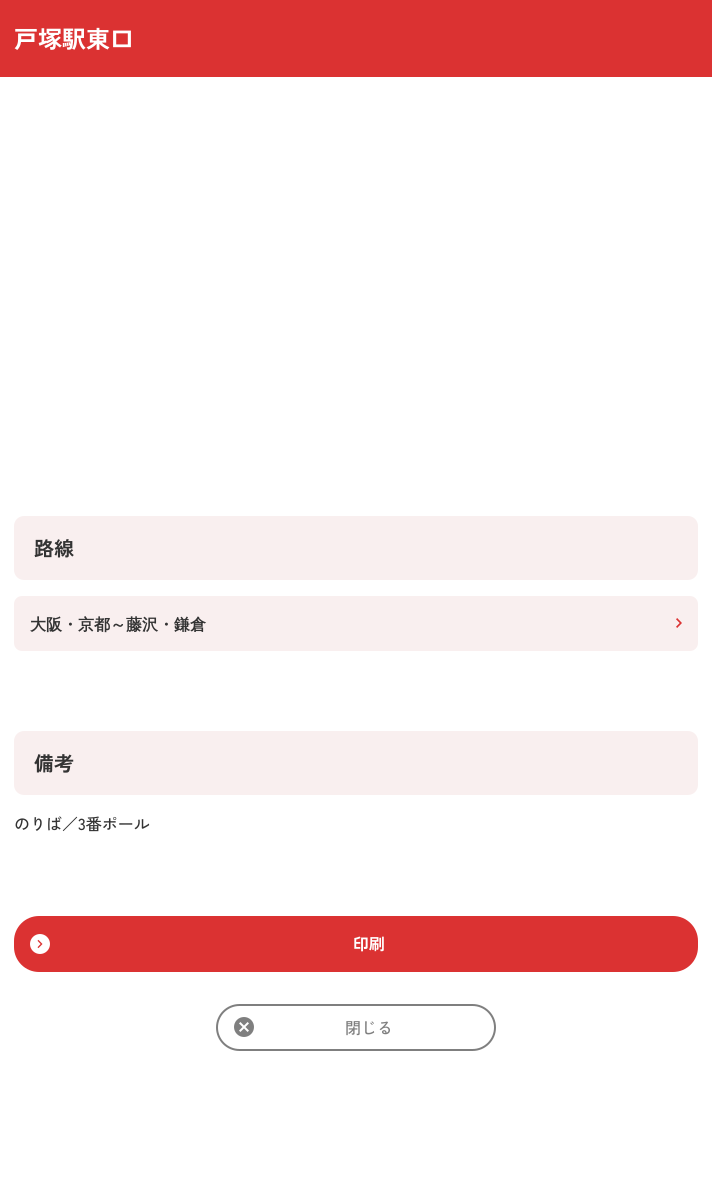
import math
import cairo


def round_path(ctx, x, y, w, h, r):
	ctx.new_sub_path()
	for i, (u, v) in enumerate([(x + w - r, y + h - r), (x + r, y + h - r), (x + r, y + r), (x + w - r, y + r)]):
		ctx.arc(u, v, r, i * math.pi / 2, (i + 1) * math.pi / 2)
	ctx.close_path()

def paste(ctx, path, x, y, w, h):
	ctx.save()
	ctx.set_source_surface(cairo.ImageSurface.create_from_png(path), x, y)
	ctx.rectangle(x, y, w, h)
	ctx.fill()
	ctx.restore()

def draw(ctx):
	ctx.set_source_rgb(1, 1, 1)
	ctx.paint()
	ctx.set_source_rgb(0.859, 0.196, 0.196)
	ctx.rectangle(0, 0, 712, 77)
	ctx.fill()
	ctx.select_font_face('Zen Kaku Gothic New', cairo.FONT_SLANT_NORMAL, cairo.FONT_WEIGHT_BOLD)
	ctx.set_font_size(24)
	ctx.set_source_rgb(1, 1, 1)
	ctx.move_to(14, 48)
	ctx.show_text('戸塚駅東口')
	ctx.set_source_rgb(0.976, 0.937, 0.937)
	round_path(ctx, 14, 516, 684, 64, 10)
	ctx.fill()
	ctx.set_font_size(20)
	ctx.set_source_rgb(0.2, 0.2, 0.2)
	ctx.move_to(34, 556)
	ctx.show_text('路線')
	ctx.set_source_rgb(0.976, 0.937, 0.937)
	round_path(ctx, 14, 596, 684, 55, 8)
	ctx.fill()
	paste(ctx, 'media/1.png', 676, 618, 6, 10)
	ctx.select_font_face('WenQuanYi Zen Hei', cairo.FONT_SLANT_NORMAL, cairo.FONT_WEIGHT_BOLD)
	ctx.set_font_size(16)
	ctx.set_source_rgb(0.2, 0.2, 0.2)
	ctx.move_to(30, 630)
	ctx.show_text('大阪・京都～藤沢・鎌倉')
	ctx.set_source_rgb(0.976, 0.937, 0.937)
	round_path(ctx, 14, 731, 684, 64, 10)
	ctx.fill()
	ctx.select_font_face('Zen Kaku Gothic New', cairo.FONT_SLANT_NORMAL, cairo.FONT_WEIGHT_BOLD)
	ctx.set_font_size(20)
	ctx.set_source_rgb(0.2, 0.2, 0.2)
	ctx.move_to(34, 771)
	ctx.show_text('備考')
	ctx.select_font_face('Zen Kaku Gothic New Medium')
	ctx.set_font_size(16)
	ctx.move_to(14, 830)
	ctx.show_text('のりば／3番ポール')
	ctx.set_source_rgb(0.859, 0.196, 0.196)
	round_path(ctx, 14, 916, 684, 56, 25)
	ctx.fill()
	paste(ctx, 'media/2.png', 30, 934, 20, 20)
	ctx.select_font_face('Zen Kaku Gothic New', cairo.FONT_SLANT_NORMAL, cairo.FONT_WEIGHT_BOLD)
	ctx.set_source_rgb(1, 1, 1)
	ctx.move_to(353, 950)
	ctx.show_text('印刷')
	round_path(ctx, 217, 1005, 278, 45, 22.5)
	ctx.set_source_rgb(0.498, 0.498, 0.498)
	ctx.stroke()
	paste(ctx, 'media/3.png', 234, 1017, 20, 20)
	ctx.select_font_face('Zen Kaku Gothic New Medium')
	ctx.move_to(345, 1034)
	ctx.show_text('閉じる')


surface = cairo.ImageSurface(cairo.FORMAT_RGB24, 712, 1197)
ctx = cairo.Context(surface)
options = cairo.FontOptions()
options.set_hint_metrics(cairo.HINT_METRICS_OFF)
options.set_hint_style(cairo.HINT_STYLE_NONE)
ctx.set_font_options(options)
ctx.set_miter_limit(4)
draw(ctx)
surface.write_to_png('image.png')
